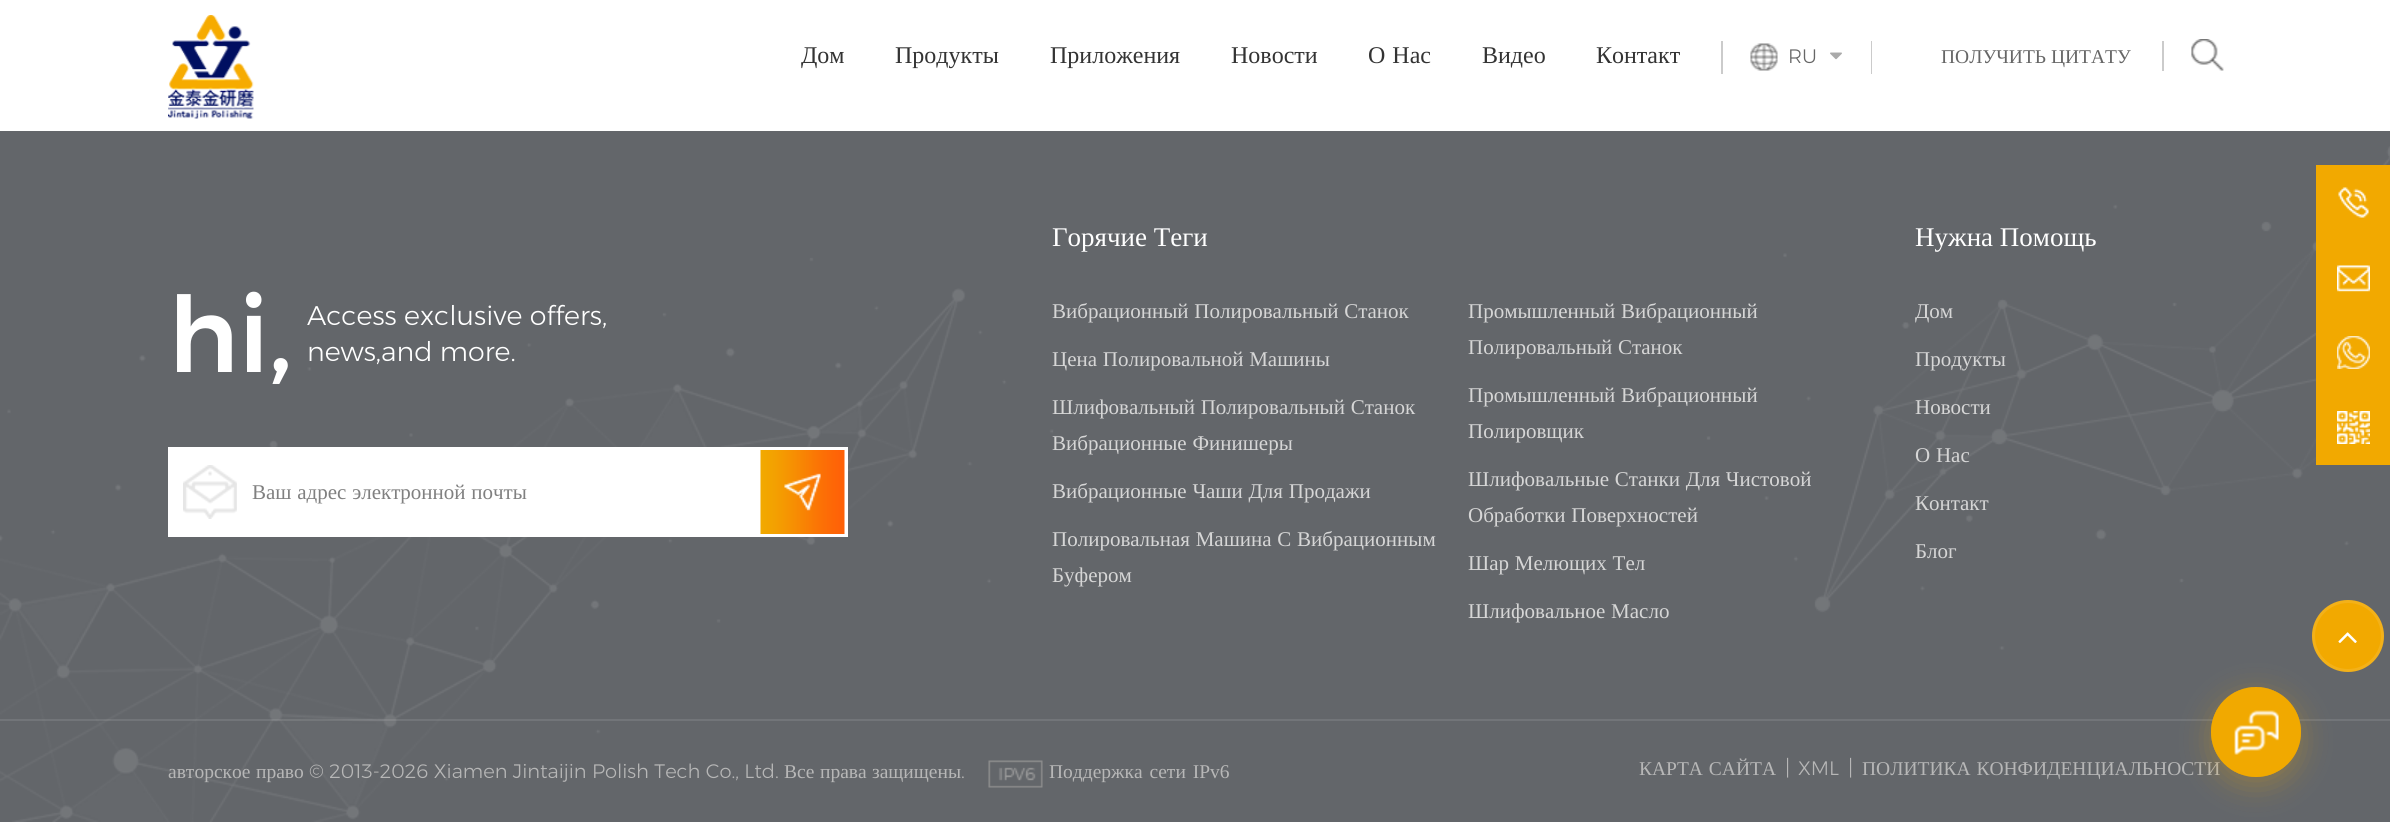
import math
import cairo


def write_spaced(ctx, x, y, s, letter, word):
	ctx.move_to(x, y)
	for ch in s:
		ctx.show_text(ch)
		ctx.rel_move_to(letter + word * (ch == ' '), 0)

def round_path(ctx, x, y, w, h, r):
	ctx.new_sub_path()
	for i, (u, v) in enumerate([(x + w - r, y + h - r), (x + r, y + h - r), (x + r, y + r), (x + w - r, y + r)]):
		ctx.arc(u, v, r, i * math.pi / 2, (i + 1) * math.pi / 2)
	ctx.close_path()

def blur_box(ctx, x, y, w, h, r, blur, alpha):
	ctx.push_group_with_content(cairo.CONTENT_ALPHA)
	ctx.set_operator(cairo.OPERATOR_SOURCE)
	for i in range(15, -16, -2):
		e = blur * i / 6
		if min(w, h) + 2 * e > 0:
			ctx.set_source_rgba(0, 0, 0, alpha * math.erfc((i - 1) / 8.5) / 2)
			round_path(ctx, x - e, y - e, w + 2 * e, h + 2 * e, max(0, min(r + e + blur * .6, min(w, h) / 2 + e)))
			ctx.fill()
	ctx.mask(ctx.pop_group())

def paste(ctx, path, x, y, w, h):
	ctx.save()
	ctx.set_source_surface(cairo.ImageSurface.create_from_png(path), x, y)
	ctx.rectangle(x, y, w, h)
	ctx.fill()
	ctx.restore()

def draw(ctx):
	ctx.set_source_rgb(0.388, 0.4, 0.416)
	ctx.paint()
	ctx.set_source_rgb(1, 1, 1)
	ctx.rectangle(0, 0, 2390, 131)
	ctx.fill()
	paste(ctx, 'media/1.png', 168, 15, 86, 104)
	ctx.select_font_face('Liberation Serif')
	ctx.set_font_size(24)
	ctx.set_source_rgb(0.2, 0.2, 0.2)
	for x, y, s in [
		(801, 63, 'Дом'),
		(895, 63, 'Продукты'),
		(1050, 63, 'Приложения'),
		(1231, 63, 'Новости'),
	]:
		ctx.move_to(x, y)
		ctx.show_text(s)
	write_spaced(ctx, 1368, 63, 'О Нас', 0, 1)
	ctx.move_to(1482, 63)
	ctx.show_text('Видео')
	ctx.move_to(1596, 63)
	ctx.show_text('Контакт')
	ctx.set_source_rgb(0.796, 0.796, 0.796)
	ctx.rectangle(1871, 41, 1, 33)
	ctx.fill()
	ctx.rectangle(1721, 41, 2, 33)
	ctx.fill()
	paste(ctx, 'media/2.png', 1750, 43, 28, 28)
	ctx.select_font_face('Montserrat Light')
	ctx.set_font_size(19.5)
	ctx.set_source_rgb(0.4, 0.4, 0.4)
	ctx.move_to(1788, 63)
	ctx.show_text('RU')
	paste(ctx, 'media/3.png', 1830, 52, 12, 8)
	ctx.set_source_rgb(0.796, 0.796, 0.796)
	ctx.rectangle(2162, 41, 2, 30)
	ctx.fill()
	ctx.select_font_face('Liberation Serif')
	ctx.set_source_rgb(0.4, 0.4, 0.4)
	ctx.move_to(1941, 63)
	ctx.show_text('ПОЛУЧИТЬ ЦИТАТУ')
	paste(ctx, 'media/4.png', 2191, 39, 33, 32)
	paste(ctx, 'media/5.png', 0, 146, 2390, 676)
	ctx.select_font_face('Montserrat Medium')
	ctx.set_font_size(105)
	ctx.set_source_rgb(1, 1, 1)
	ctx.move_to(168, 372)
	ctx.show_text('hi,')
	ctx.select_font_face('Montserrat Light')
	ctx.set_font_size(27)
	ctx.move_to(307, 325)
	ctx.show_text('Access exclusive offers,')
	ctx.move_to(307, 361)
	ctx.show_text('news,and more.')
	ctx.rectangle(168, 447, 680, 90)
	ctx.fill()
	paste(ctx, 'media/6.png', 183, 465, 54, 54)
	ctx.select_font_face('Liberation Serif')
	ctx.set_font_size(21)
	ctx.set_source_rgb(0.502, 0.502, 0.502)
	write_spaced(ctx, 252, 499, 'Ваш адрес электронной почты', 0, 0.5)
	paste(ctx, 'media/7.png', 760, 450, 85, 84)
	ctx.set_font_size(27)
	ctx.set_source_rgb(1, 1, 1)
	ctx.move_to(1052, 246)
	ctx.show_text('Горячие Теги')
	ctx.set_font_size(21)
	ctx.set_source_rgb(0.839, 0.839, 0.839)
	for x, y, s in [
		(1052, 318, 'Вибрационный Полировальный Станок'),
		(1468, 318, 'Промышленный Вибрационный'),
		(1468, 354, 'Полировальный Станок'),
		(1052, 366, 'Цена Полировальной Машины'),
		(1052, 414, 'Шлифовальный Полировальный Станок'),
		(1052, 450, 'Вибрационные Финишеры'),
		(1468, 402, 'Промышленный Вибрационный'),
	]:
		write_spaced(ctx, x, y, s, 0, 0.5)
	ctx.move_to(1468, 438)
	ctx.show_text('Полировщик')
	for x, y, s in [
		(1052, 498, 'Вибрационные Чаши Для Продажи'),
		(1468, 486, 'Шлифовальные Станки Для Чистовой'),
		(1468, 522, 'Обработки Поверхностей'),
		(1052, 546, 'Полировальная Машина С Вибрационным'),
	]:
		write_spaced(ctx, x, y, s, 0, 0.5)
	ctx.move_to(1052, 582)
	ctx.show_text('Буфером')
	write_spaced(ctx, 1468, 570, 'Шар Мелющих Тел', 0, 0.5)
	write_spaced(ctx, 1468, 618, 'Шлифовальное Масло', 0, 0.5)
	ctx.set_font_size(27)
	ctx.set_source_rgb(1, 1, 1)
	ctx.move_to(1915, 246)
	ctx.show_text('Нужна Помощь')
	ctx.set_font_size(21)
	ctx.set_source_rgb(0.839, 0.839, 0.839)
	for x, y, s in [
		(1915, 318, 'Дом'),
		(1915, 366, 'Продукты'),
		(1915, 414, 'Новости'),
	]:
		ctx.move_to(x, y)
		ctx.show_text(s)
	write_spaced(ctx, 1915, 462, 'О Нас', 0, 0.5)
	ctx.move_to(1915, 510)
	ctx.show_text('Контакт')
	ctx.move_to(1915, 558)
	ctx.show_text('Блог')
	ctx.set_source_rgba(1, 1, 1, 0.1)
	ctx.rectangle(0, 719, 2390, 2)
	ctx.fill()
	ctx.set_font_size(19.5)
	ctx.set_source_rgb(0.718, 0.718, 0.718)
	ctx.move_to(168, 778)
	ctx.show_text('авторское')
	ctx.move_to(256, 778)
	ctx.show_text('право')
	ctx.select_font_face('Montserrat Light')
	ctx.move_to(309, 778)
	ctx.show_text('© 2013-2026 Xiamen Jintaijin Polish Tech Co., Ltd.')
	ctx.select_font_face('Liberation Serif')
	for x, y, s in [
		(784, 778, 'Все'),
		(820, 778, 'права'),
		(872, 778, 'защищены'),
	]:
		ctx.move_to(x, y)
		ctx.show_text(s)
	ctx.select_font_face('Montserrat Light')
	ctx.move_to(961, 778)
	ctx.show_text('.')
	paste(ctx, 'media/8.png', 988, 760, 55, 28)
	ctx.select_font_face('Liberation Serif')
	write_spaced(ctx, 1049, 778, 'Поддержка сети IPv6', 0, 2)
	write_spaced(ctx, 1639, 775, 'КАРТА САЙТА', 0, 1)
	ctx.select_font_face('Montserrat Light')
	ctx.set_font_size(21)
	ctx.move_to(1785, 775)
	ctx.show_text('|')
	ctx.set_font_size(19.5)
	ctx.move_to(1798, 775)
	ctx.show_text('XML')
	ctx.set_font_size(21)
	ctx.move_to(1848, 775)
	ctx.show_text('|')
	ctx.select_font_face('Liberation Serif')
	ctx.set_font_size(19.5)
	write_spaced(ctx, 1862, 775, 'ПОЛИТИКА КОНФИДЕНЦИАЛЬНОСТИ', 0, 1)
	ctx.set_source_rgb(0.949, 0.663, 0)
	ctx.rectangle(2316, 165, 74, 75)
	ctx.fill()
	paste(ctx, 'media/9.png', 2338, 187, 31, 31)
	ctx.rectangle(2316, 240, 74, 225)
	ctx.fill()
	paste(ctx, 'media/10.png', 2337, 336, 33, 33)
	paste(ctx, 'media/11.png', 2337, 265, 33, 27)
	paste(ctx, 'media/12.png', 2337, 411, 33, 33)
	ctx.arc(2348, 636, 36, 0, 2 * math.pi)
	ctx.fill()
	ctx.arc(2348, 636, 34.5, 0, 2 * math.pi)
	ctx.set_source_rgba(1, 1, 1, 0.1)
	ctx.set_line_width(3)
	ctx.stroke()
	paste(ctx, 'media/13.png', 2338, 632, 19, 11)
	ctx.set_source_rgb(0.949, 0.663, 0)
	blur_box(ctx, 2211, 695, 90, 90, 45, 15, 0.3)
	ctx.set_source_rgb(0.949, 0.663, 0)
	ctx.arc(2256, 732, 45, 0, 2 * math.pi)
	ctx.fill()
	ctx.set_source_rgba(0.949, 0.663, 0, 0.25)
	ctx.arc(2256, 732, 45, 0, 2 * math.pi)
	ctx.fill()
	ctx.arc(2256, 732, 45, 0, 2 * math.pi)
	ctx.fill()
	ctx.arc(2256, 732, 45, 0, 2 * math.pi)
	ctx.fill()
	paste(ctx, 'media/14.png', 2234, 710, 45, 45)


surface = cairo.ImageSurface(cairo.FORMAT_RGB24, 2390, 822)
ctx = cairo.Context(surface)
options = cairo.FontOptions()
options.set_hint_metrics(cairo.HINT_METRICS_OFF)
options.set_hint_style(cairo.HINT_STYLE_NONE)
ctx.set_font_options(options)
ctx.set_miter_limit(4)
draw(ctx)
surface.write_to_png('image.png')
